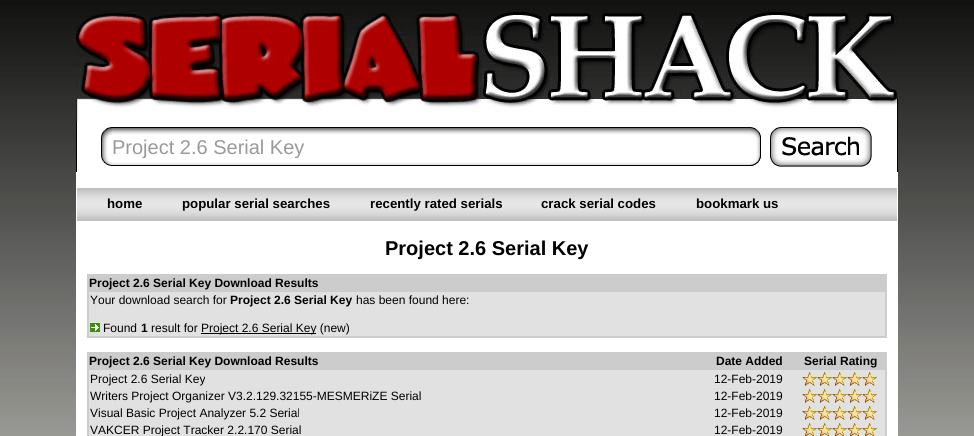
import math
import cairo


def paste(ctx, path, x, y, w, h):
	ctx.save()
	ctx.set_source_surface(cairo.ImageSurface.create_from_png(path), x, y)
	ctx.rectangle(x, y, w, h)
	ctx.fill()
	ctx.restore()

def draw(ctx):
	ctx.set_source_rgb(1, 1, 1)
	ctx.paint()
	paste(ctx, 'media/1.png', 0, 0, 974, 436)
	paste(ctx, 'media/2.png', 76, 0, 405, 121)
	paste(ctx, 'media/3.png', 481, 0, 417, 121)
	ctx.set_source_rgb(1, 1, 1)
	ctx.rectangle(112, 121, 785, 51)
	ctx.fill()
	paste(ctx, 'media/4.png', 76, 121, 36, 51)
	paste(ctx, 'media/5.png', 112, 127, 638, 39)
	ctx.select_font_face('Liberation Sans')
	ctx.set_font_size(20)
	ctx.set_source_rgb(0.6, 0.6, 0.6)
	ctx.move_to(112, 154)
	ctx.show_text('Project 2.6 Serial Key')
	paste(ctx, 'media/6.png', 750, 127, 11, 39)
	paste(ctx, 'media/7.png', 770, 127, 102, 40)
	ctx.set_source_rgb(0, 0, 0)
	ctx.rectangle(897, 121, 1, 51)
	ctx.fill()
	ctx.set_source_rgb(1, 1, 1)
	ctx.rectangle(76, 172, 822, 264)
	ctx.fill()
	paste(ctx, 'media/8.png', 77, 188, 820, 33)
	ctx.select_font_face('Liberation Sans', cairo.FONT_SLANT_NORMAL, cairo.FONT_WEIGHT_BOLD)
	ctx.set_font_size(13.25)
	ctx.set_source_rgb(0, 0, 0)
	for x, y, s in [
		(107, 208, 'home'),
		(182, 208, 'popular serial searches'),
		(370, 208, 'recently rated serials'),
		(541, 208, 'crack serial codes'),
		(696, 208, 'bookmark us'),
	]:
		ctx.move_to(x, y)
		ctx.show_text(s)
	ctx.set_font_size(20)
	ctx.move_to(385, 255)
	ctx.show_text('Project 2.6 Serial Key')
	ctx.set_source_rgb(0.8, 0.8, 0.8)
	ctx.rectangle(87, 274, 800, 64)
	ctx.fill()
	ctx.set_font_size(12)
	ctx.set_source_rgb(0, 0, 0)
	ctx.move_to(89, 287)
	ctx.show_text('Project 2.6 Serial Key Download Results')
	ctx.set_source_rgb(0.882, 0.882, 0.882)
	ctx.rectangle(89, 292, 796, 44)
	ctx.fill()
	ctx.select_font_face('Liberation Sans')
	ctx.set_source_rgb(0, 0, 0)
	ctx.move_to(90, 304)
	ctx.show_text('Your download search for')
	ctx.select_font_face('Liberation Sans', cairo.FONT_SLANT_NORMAL, cairo.FONT_WEIGHT_BOLD)
	ctx.move_to(230, 304)
	ctx.show_text('Project 2.6 Serial Key')
	ctx.select_font_face('Liberation Sans')
	ctx.move_to(356, 304)
	ctx.show_text('has been found here:')
	paste(ctx, 'media/9.png', 90, 323, 10, 9)
	ctx.move_to(103, 332)
	ctx.show_text('Found')
	ctx.select_font_face('Liberation Sans', cairo.FONT_SLANT_NORMAL, cairo.FONT_WEIGHT_BOLD)
	ctx.move_to(141, 332)
	ctx.show_text('1')
	ctx.select_font_face('Liberation Sans')
	ctx.move_to(151, 332)
	ctx.show_text('result for')
	ctx.rectangle(201, 333, 115, 1)
	ctx.fill()
	ctx.move_to(201, 332)
	ctx.show_text('Project 2.6 Serial Key (new)')
	ctx.set_source_rgb(0.8, 0.8, 0.8)
	ctx.rectangle(87, 352, 800, 84)
	ctx.fill()
	ctx.select_font_face('Liberation Sans', cairo.FONT_SLANT_NORMAL, cairo.FONT_WEIGHT_BOLD)
	ctx.set_source_rgb(0, 0, 0)
	for x, y, s in [
		(89, 365, 'Project 2.6 Serial Key Download Results'),
		(716, 365, 'Date Added'),
		(804, 365, 'Serial Rating'),
	]:
		ctx.move_to(x, y)
		ctx.show_text(s)
	ctx.set_source_rgb(0.882, 0.882, 0.882)
	ctx.rectangle(89, 370, 796, 66)
	ctx.fill()
	ctx.select_font_face('Liberation Sans')
	ctx.set_source_rgb(0, 0, 0)
	ctx.move_to(90, 383)
	ctx.show_text('Project 2.6 Serial Key')
	ctx.move_to(714, 383)
	ctx.show_text('12-Feb-2019')
	paste(ctx, 'media/10.png', 802, 372, 75, 14)
	ctx.move_to(90, 400)
	ctx.show_text('Writers Project Organizer V3.2.129.32155-MESMERiZE Serial')
	ctx.move_to(714, 400)
	ctx.show_text('12-Feb-2019')
	paste(ctx, 'media/10.png', 802, 389, 75, 14)
	ctx.move_to(90, 417)
	ctx.show_text('Visual Basic Project Analyzer 5.2 Serial')
	ctx.move_to(714, 417)
	ctx.show_text('12-Feb-2019')
	paste(ctx, 'media/10.png', 802, 406, 75, 14)
	ctx.move_to(90, 434)
	ctx.show_text('VAKCER Project Tracker 2.2.170 Serial')
	ctx.move_to(714, 434)
	ctx.show_text('12-Feb-2019')
	paste(ctx, 'media/11.png', 802, 423, 75, 13)


surface = cairo.ImageSurface(cairo.FORMAT_RGB24, 974, 436)
ctx = cairo.Context(surface)
options = cairo.FontOptions()
options.set_hint_metrics(cairo.HINT_METRICS_OFF)
options.set_hint_style(cairo.HINT_STYLE_NONE)
ctx.set_font_options(options)
ctx.set_miter_limit(4)
draw(ctx)
surface.write_to_png('image.png')
